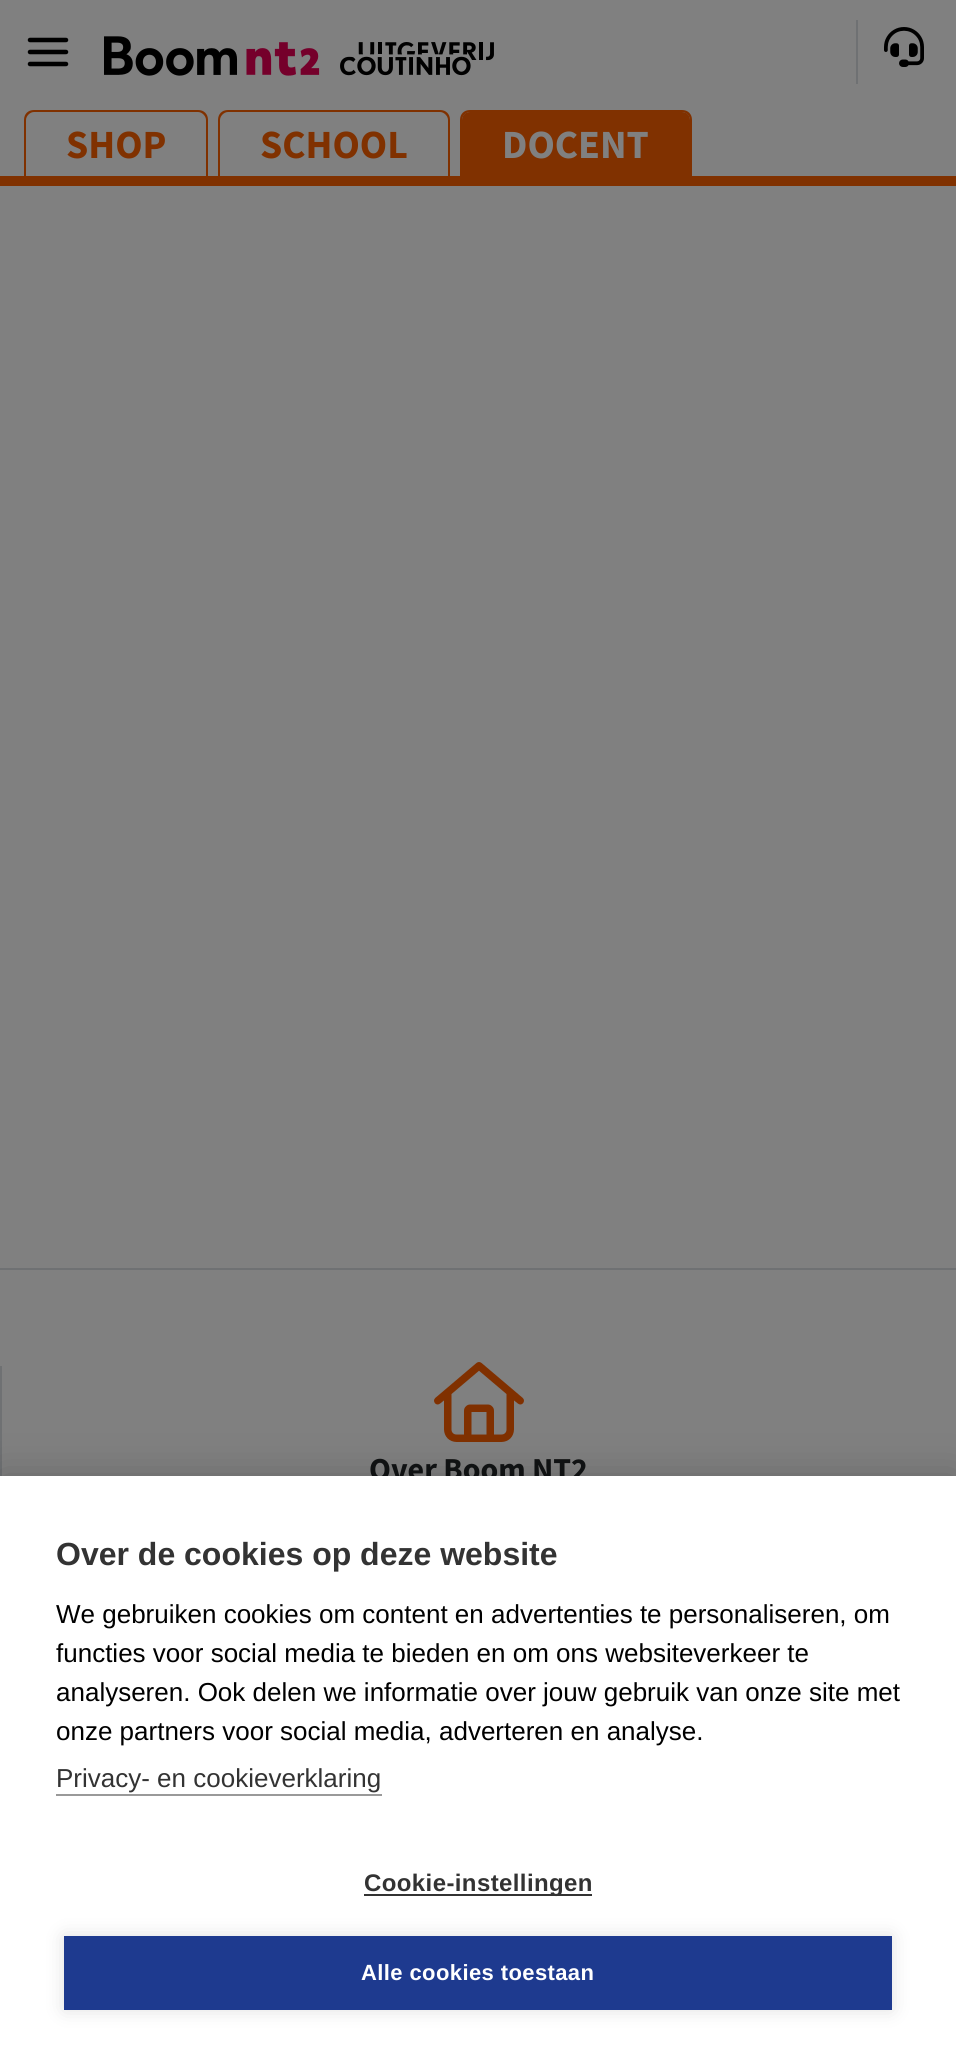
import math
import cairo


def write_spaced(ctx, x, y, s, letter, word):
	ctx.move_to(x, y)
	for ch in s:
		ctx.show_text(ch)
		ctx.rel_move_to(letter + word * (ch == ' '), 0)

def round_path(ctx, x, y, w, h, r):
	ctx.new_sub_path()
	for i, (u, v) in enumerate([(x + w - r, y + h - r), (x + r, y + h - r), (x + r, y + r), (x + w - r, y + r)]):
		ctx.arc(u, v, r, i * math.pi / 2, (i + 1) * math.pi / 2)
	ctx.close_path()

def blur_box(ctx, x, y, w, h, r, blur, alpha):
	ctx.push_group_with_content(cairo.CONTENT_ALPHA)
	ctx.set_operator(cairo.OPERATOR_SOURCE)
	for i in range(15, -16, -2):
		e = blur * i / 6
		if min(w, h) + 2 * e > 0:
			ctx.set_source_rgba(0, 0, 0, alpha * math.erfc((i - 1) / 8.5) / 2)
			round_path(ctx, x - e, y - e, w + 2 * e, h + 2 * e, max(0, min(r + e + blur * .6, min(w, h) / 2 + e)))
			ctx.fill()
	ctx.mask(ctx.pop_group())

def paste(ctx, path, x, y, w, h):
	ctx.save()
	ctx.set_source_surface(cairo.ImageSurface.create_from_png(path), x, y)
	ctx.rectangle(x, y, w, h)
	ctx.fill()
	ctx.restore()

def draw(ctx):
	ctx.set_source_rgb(0.502, 0.502, 0.502)
	ctx.paint()
	ctx.new_path()
	ctx.move_to(30, 40)
	ctx.line_to(66, 40)
	ctx.move_to(30, 52)
	ctx.line_to(66, 52)
	ctx.move_to(30, 64)
	ctx.line_to(66, 64)
	ctx.set_source_rgb(0, 0, 0)
	ctx.set_line_width(4.5)
	ctx.set_line_cap(cairo.LINE_CAP_ROUND)
	ctx.stroke()
	paste(ctx, 'media/1.png', 104, 36, 390, 40)
	ctx.set_source_rgb(0.435, 0.443, 0.451)
	ctx.rectangle(856, 20, 2, 64)
	ctx.fill()
	paste(ctx, 'media/2.png', 884, 27, 40, 40)
	ctx.set_source_rgb(0.502, 0.192, 0)
	ctx.set_fill_rule(cairo.FILL_RULE_EVEN_ODD)
	ctx.new_path()
	ctx.move_to(34, 110)
	ctx.line_to(198, 110)
	ctx.curve_to(204, 110, 208, 114, 208, 120)
	ctx.line_to(208, 176)
	ctx.line_to(24, 176)
	ctx.line_to(24, 120)
	ctx.curve_to(24, 114, 28, 110, 34, 110)
	ctx.close_path()
	ctx.move_to(34, 112)
	ctx.line_to(198, 112)
	ctx.curve_to(202, 112, 206, 116, 206, 120)
	ctx.line_to(206, 176)
	ctx.line_to(26, 176)
	ctx.line_to(26, 120)
	ctx.curve_to(26, 116, 30, 112, 34, 112)
	ctx.close_path()
	ctx.fill()
	ctx.select_font_face('Source Sans Pro', cairo.FONT_SLANT_NORMAL, cairo.FONT_WEIGHT_BOLD)
	ctx.set_font_size(40)
	ctx.move_to(66, 158)
	ctx.show_text('SHOP')
	ctx.new_path()
	ctx.move_to(228, 110)
	ctx.line_to(440, 110)
	ctx.curve_to(446, 110, 450, 114, 450, 120)
	ctx.line_to(450, 176)
	ctx.line_to(218, 176)
	ctx.line_to(218, 120)
	ctx.curve_to(218, 114, 222, 110, 228, 110)
	ctx.close_path()
	ctx.move_to(228, 112)
	ctx.line_to(440, 112)
	ctx.curve_to(444, 112, 448, 116, 448, 120)
	ctx.line_to(448, 176)
	ctx.line_to(220, 176)
	ctx.line_to(220, 120)
	ctx.curve_to(220, 116, 224, 112, 228, 112)
	ctx.close_path()
	ctx.fill()
	ctx.move_to(260, 158)
	ctx.show_text('SCHOOL')
	ctx.new_path()
	ctx.move_to(470, 112)
	ctx.line_to(682, 112)
	ctx.curve_to(686.5, 112, 690, 115.5, 690, 120)
	ctx.line_to(690, 176)
	ctx.line_to(462, 176)
	ctx.line_to(462, 120)
	ctx.curve_to(462, 115.5, 465.5, 112, 470, 112)
	ctx.close_path()
	ctx.fill()
	ctx.new_path()
	ctx.move_to(470, 110)
	ctx.line_to(682, 110)
	ctx.curve_to(688, 110, 692, 114, 692, 120)
	ctx.line_to(692, 176)
	ctx.line_to(460, 176)
	ctx.line_to(460, 120)
	ctx.curve_to(460, 114, 464, 110, 470, 110)
	ctx.close_path()
	ctx.move_to(470, 112)
	ctx.line_to(682, 112)
	ctx.curve_to(686, 112, 690, 116, 690, 120)
	ctx.line_to(690, 176)
	ctx.line_to(462, 176)
	ctx.line_to(462, 120)
	ctx.curve_to(462, 116, 466, 112, 470, 112)
	ctx.close_path()
	ctx.fill()
	ctx.set_source_rgb(0.502, 0.502, 0.502)
	ctx.move_to(502, 158)
	ctx.show_text('DOCENT')
	ctx.set_source_rgb(0.502, 0.192, 0)
	ctx.rectangle(0, 176, 956, 10)
	ctx.fill()
	ctx.set_source_rgb(0.435, 0.443, 0.451)
	ctx.rectangle(0, 1268, 956, 2)
	ctx.rectangle(0, 1366, 2, 110)
	ctx.fill()
	paste(ctx, 'media/3.png', 434, 1362, 90, 80)
	ctx.set_font_size(32)
	ctx.set_source_rgb(0.067, 0.075, 0.082)
	ctx.move_to(369, 1480)
	ctx.show_text('Over Boom NT2')
	ctx.set_source_rgb(0, 0, 0)
	blur_box(ctx, 0, 1476, 956, 590, 0, 20, 0.2)
	ctx.set_source_rgb(1, 1, 1)
	ctx.rectangle(0, 1476, 956, 590)
	ctx.fill()
	ctx.select_font_face('Liberation Sans', cairo.FONT_SLANT_NORMAL, cairo.FONT_WEIGHT_BOLD)
	ctx.set_source_rgb(0.2, 0.2, 0.2)
	ctx.move_to(56, 1565)
	ctx.show_text('Over de cookies op deze website')
	ctx.select_font_face('Liberation Sans')
	ctx.set_font_size(26)
	ctx.set_source_rgb(0, 0, 0)
	for x, y, s in [
		(56, 1623, 'We gebruiken cookies om content en advertenties te personaliseren, om'),
		(56, 1662, 'functies voor social media te bieden en om ons websiteverkeer te'),
		(56, 1701, 'analyseren. Ook delen we informatie over jouw gebruik van onze site met'),
		(56, 1740, 'onze partners voor social media, adverteren en analyse.'),
	]:
		ctx.move_to(x, y)
		ctx.show_text(s)
	ctx.set_source_rgb(0.2, 0.2, 0.2)
	ctx.move_to(56, 1787)
	ctx.show_text('Privacy- en cookieverklaring')
	ctx.set_source_rgb(0.6, 0.6, 0.6)
	ctx.rectangle(56, 1794, 326, 2)
	ctx.fill()
	ctx.set_source_rgb(0.2, 0.2, 0.2)
	ctx.rectangle(364, 1894, 228, 2)
	ctx.fill()
	ctx.select_font_face('Liberation Sans', cairo.FONT_SLANT_NORMAL, cairo.FONT_WEIGHT_BOLD)
	ctx.set_font_size(24)
	write_spaced(ctx, 364, 1891, 'Cookie-instellingen', 0.4, 0)
	ctx.set_source_rgb(0, 0, 0)
	blur_box(ctx, 64, 1936, 828, 74, 0, 10, 0.12)
	ctx.set_source_rgb(0.118, 0.227, 0.561)
	ctx.rectangle(64, 1936, 828, 74)
	ctx.fill()
	ctx.set_font_size(22)
	ctx.set_source_rgb(1, 1, 1)
	write_spaced(ctx, 361, 1980, 'Alle cookies toestaan', 0.4, 0)


surface = cairo.ImageSurface(cairo.FORMAT_RGB24, 956, 2066)
ctx = cairo.Context(surface)
options = cairo.FontOptions()
options.set_hint_metrics(cairo.HINT_METRICS_OFF)
options.set_hint_style(cairo.HINT_STYLE_NONE)
ctx.set_font_options(options)
ctx.set_miter_limit(4)
draw(ctx)
surface.write_to_png('image.png')
